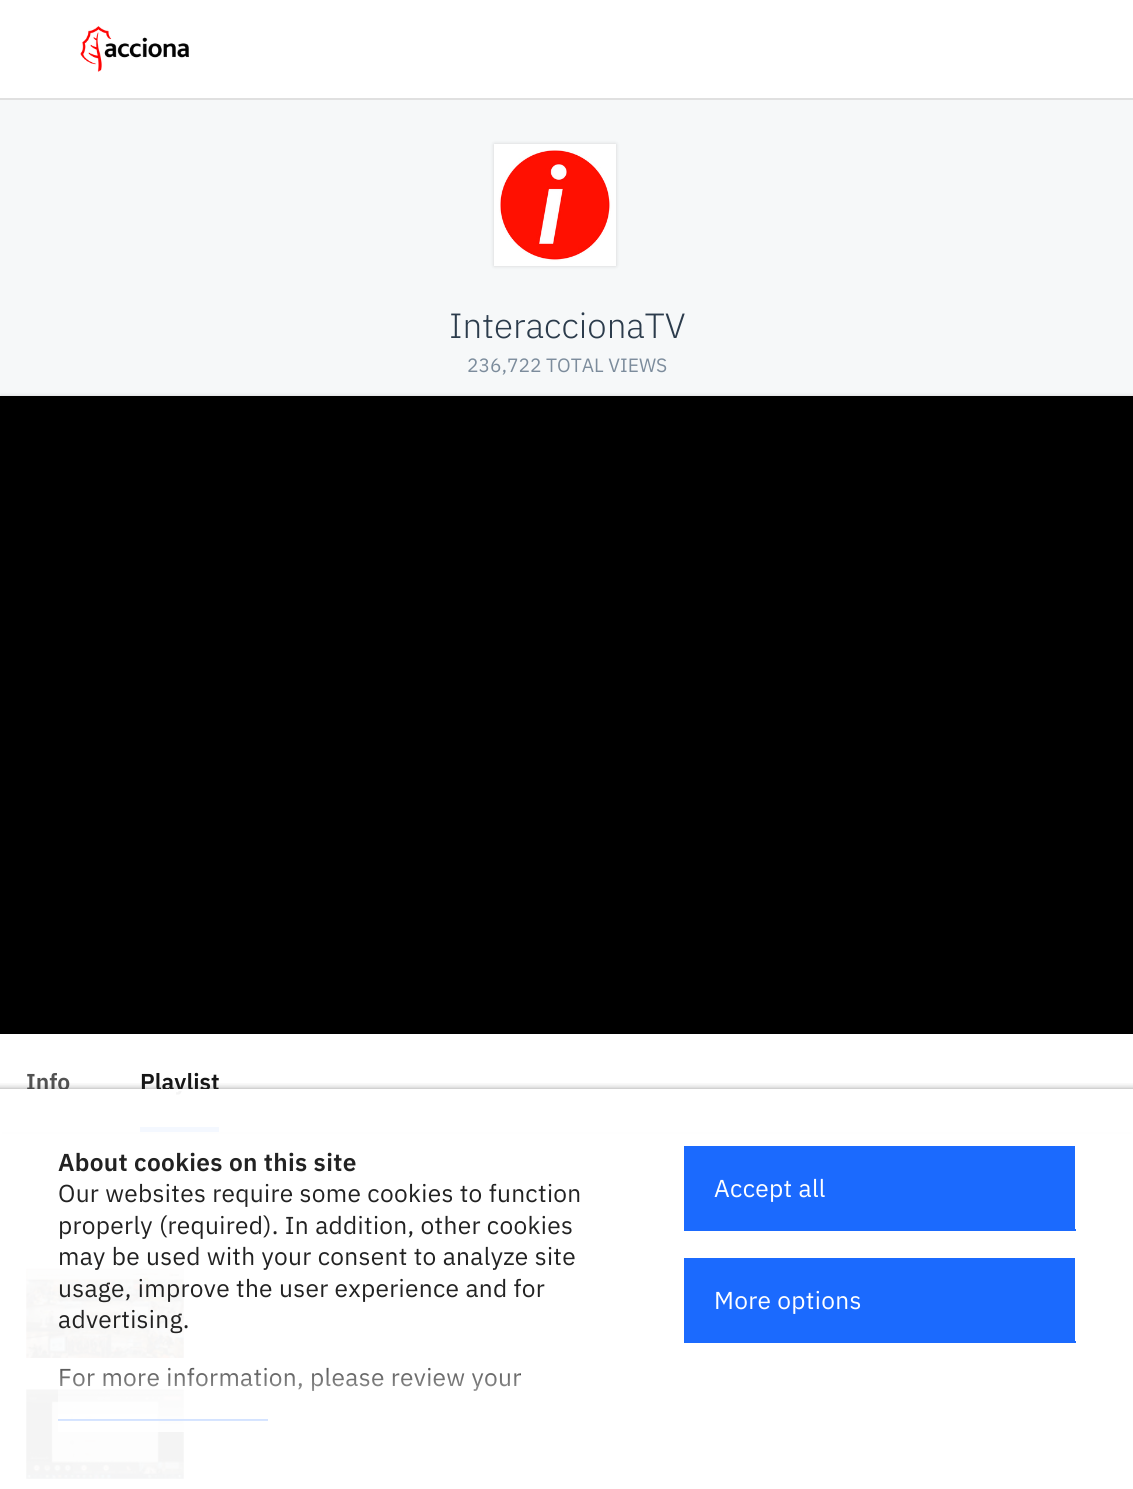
import math
import cairo


def write_spaced(ctx, x, y, s, letter, word):
	ctx.move_to(x, y)
	for ch in s:
		ctx.show_text(ch)
		ctx.rel_move_to(letter + word * (ch == ' '), 0)

def round_path(ctx, x, y, w, h, r):
	ctx.new_sub_path()
	for i, (u, v) in enumerate([(x + w - r, y + h - r), (x + r, y + h - r), (x + r, y + r), (x + w - r, y + r)]):
		ctx.arc(u, v, r, i * math.pi / 2, (i + 1) * math.pi / 2)
	ctx.close_path()

def blur_box(ctx, x, y, w, h, r, blur, alpha):
	ctx.push_group_with_content(cairo.CONTENT_ALPHA)
	ctx.set_operator(cairo.OPERATOR_SOURCE)
	for i in range(15, -16, -2):
		e = blur * i / 6
		if min(w, h) + 2 * e > 0:
			ctx.set_source_rgba(0, 0, 0, alpha * math.erfc((i - 1) / 8.5) / 2)
			round_path(ctx, x - e, y - e, w + 2 * e, h + 2 * e, max(0, min(r + e + blur * .6, min(w, h) / 2 + e)))
			ctx.fill()
	ctx.mask(ctx.pop_group())

def paste(ctx, path, x, y, w, h):
	ctx.save()
	ctx.set_source_surface(cairo.ImageSurface.create_from_png(path), x, y)
	ctx.rectangle(x, y, w, h)
	ctx.fill()
	ctx.restore()

def draw(ctx):
	ctx.set_source_rgb(0.961, 0.969, 0.976)
	ctx.paint()
	ctx.set_source_rgb(1, 1, 1)
	ctx.rectangle(0, 0, 1133, 98)
	ctx.fill()
	ctx.set_source_rgb(0.878, 0.878, 0.878)
	ctx.rectangle(0, 98, 1133, 2)
	ctx.fill()
	paste(ctx, 'media/1.png', 80, 26, 109, 46)
	ctx.set_source_rgb(0, 0, 0)
	blur_box(ctx, 494, 144, 122, 122, 0, 2, 0.14)
	ctx.set_source_rgb(1, 1, 1)
	ctx.rectangle(494, 144, 122, 122)
	ctx.fill()
	paste(ctx, 'media/2.png', 499, 150, 112, 111)
	ctx.select_font_face('IBM Plex Sans Light')
	ctx.set_font_size(35)
	ctx.set_source_rgb(0.173, 0.235, 0.298)
	ctx.move_to(449, 338)
	ctx.show_text('InteraccionaTV')
	ctx.select_font_face('IBM Plex Sans')
	ctx.set_font_size(19.25)
	ctx.set_source_rgb(0.486, 0.549, 0.612)
	ctx.move_to(467, 372)
	ctx.show_text('236,722 TOTAL VIEWS')
	ctx.set_source_rgb(0, 0, 0)
	blur_box(ctx, 0, 396, 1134, 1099, 0, 2, 0.14)
	ctx.set_source_rgb(1, 1, 1)
	ctx.rectangle(0, 1034, 1133, 455)
	ctx.fill()
	ctx.set_source_rgb(0, 0, 0)
	ctx.rectangle(0, 396, 1133, 638)
	ctx.fill()
	ctx.save()
	ctx.rectangle(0, 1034, 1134, 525)
	ctx.clip()
	ctx.set_fill_rule(cairo.FILL_RULE_EVEN_ODD)
	ctx.new_path()
	ctx.move_to(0, 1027)
	ctx.line_to(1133, 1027)
	ctx.line_to(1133, 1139)
	ctx.line_to(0, 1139)
	ctx.close_path()
	ctx.move_to(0, 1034)
	ctx.line_to(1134, 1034)
	ctx.line_to(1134, 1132)
	ctx.line_to(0, 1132)
	ctx.close_path()
	ctx.clip()
	ctx.set_source_rgb(0, 0, 0)
	blur_box(ctx, 0, 1034, 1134, 98, 0, 2, 0.24)
	ctx.restore()
	ctx.select_font_face('IBM Plex Sans SemiBold')
	ctx.set_font_size(23)
	ctx.set_source_rgb(0.322, 0.322, 0.322)
	ctx.move_to(26, 1090)
	ctx.show_text('Info')
	ctx.set_source_rgb(0.086, 0.086, 0.086)
	ctx.move_to(140, 1090)
	ctx.show_text('Playlist')
	ctx.set_source_rgb(0.059, 0.384, 0.996)
	ctx.rectangle(140, 1127, 79, 5)
	ctx.fill()
	paste(ctx, 'media/3.png', 26, 1268, 158, 90)
	paste(ctx, 'media/4.png', 26, 1389, 158, 90)
	ctx.save()
	ctx.rectangle(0, 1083, 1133, 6)
	ctx.clip()
	ctx.set_source_rgb(0.165, 0.165, 0.165)
	blur_box(ctx, -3, 1092, 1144, 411, 0, 4.5, 0.95)
	ctx.restore()
	ctx.set_source_rgba(1, 1, 1, 0.95)
	ctx.rectangle(0, 1089, 1133, 390)
	ctx.fill()
	ctx.rectangle(1, 1090, 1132, 398)
	ctx.stroke()
	ctx.set_font_size(24.5)
	ctx.set_source_rgb(0.133, 0.133, 0.133)
	write_spaced(ctx, 58, 1171, 'About cookies on this site', 0.3, 0)
	ctx.select_font_face('IBM Plex Sans')
	for x, y, s in [
		(58, 1202, 'Our websites require some cookies to function'),
		(58, 1234, 'properly (required). In addition, other cookies'),
		(58, 1265, 'may be used with your consent to analyze site'),
		(58, 1297, 'usage, improve the user experience and for'),
		(58, 1328, 'advertising.'),
		(58, 1386, 'For more information, please review your'),
	]:
		write_spaced(ctx, x, y, s, 0.3, 0)
	ctx.set_source_rgba(0.059, 0.384, 0.996, 0.95)
	ctx.rectangle(58, 1419, 210, 2)
	ctx.fill()
	gradient = cairo.LinearGradient(340, 1344, 340, 1432)
	gradient.add_color_stop_rgba(0.02, 1, 1, 1, 0)
	gradient.add_color_stop_rgba(1, 1, 1, 1, 0.95)
	ctx.set_source(gradient)
	ctx.rectangle(58, 1367, 462, 65)
	ctx.fill()
	ctx.set_source_rgb(0.106, 0.416, 0.996)
	ctx.rectangle(684, 1146, 391, 83)
	ctx.fill()
	ctx.rectangle(684, 1229, 392, 2)
	ctx.fill()
	ctx.set_source_rgb(1, 1, 1)
	write_spaced(ctx, 714, 1197, 'Accept all', 0.3, 0)
	ctx.set_source_rgb(0.106, 0.416, 0.996)
	ctx.rectangle(684, 1258, 391, 83)
	ctx.fill()
	ctx.rectangle(684, 1341, 392, 2)
	ctx.fill()
	ctx.set_source_rgb(1, 1, 1)
	write_spaced(ctx, 714, 1309, 'More options', 0.3, 0)


surface = cairo.ImageSurface(cairo.FORMAT_RGB24, 1133, 1489)
ctx = cairo.Context(surface)
options = cairo.FontOptions()
options.set_hint_metrics(cairo.HINT_METRICS_OFF)
options.set_hint_style(cairo.HINT_STYLE_NONE)
ctx.set_font_options(options)
ctx.set_miter_limit(4)
draw(ctx)
surface.write_to_png('image.png')
